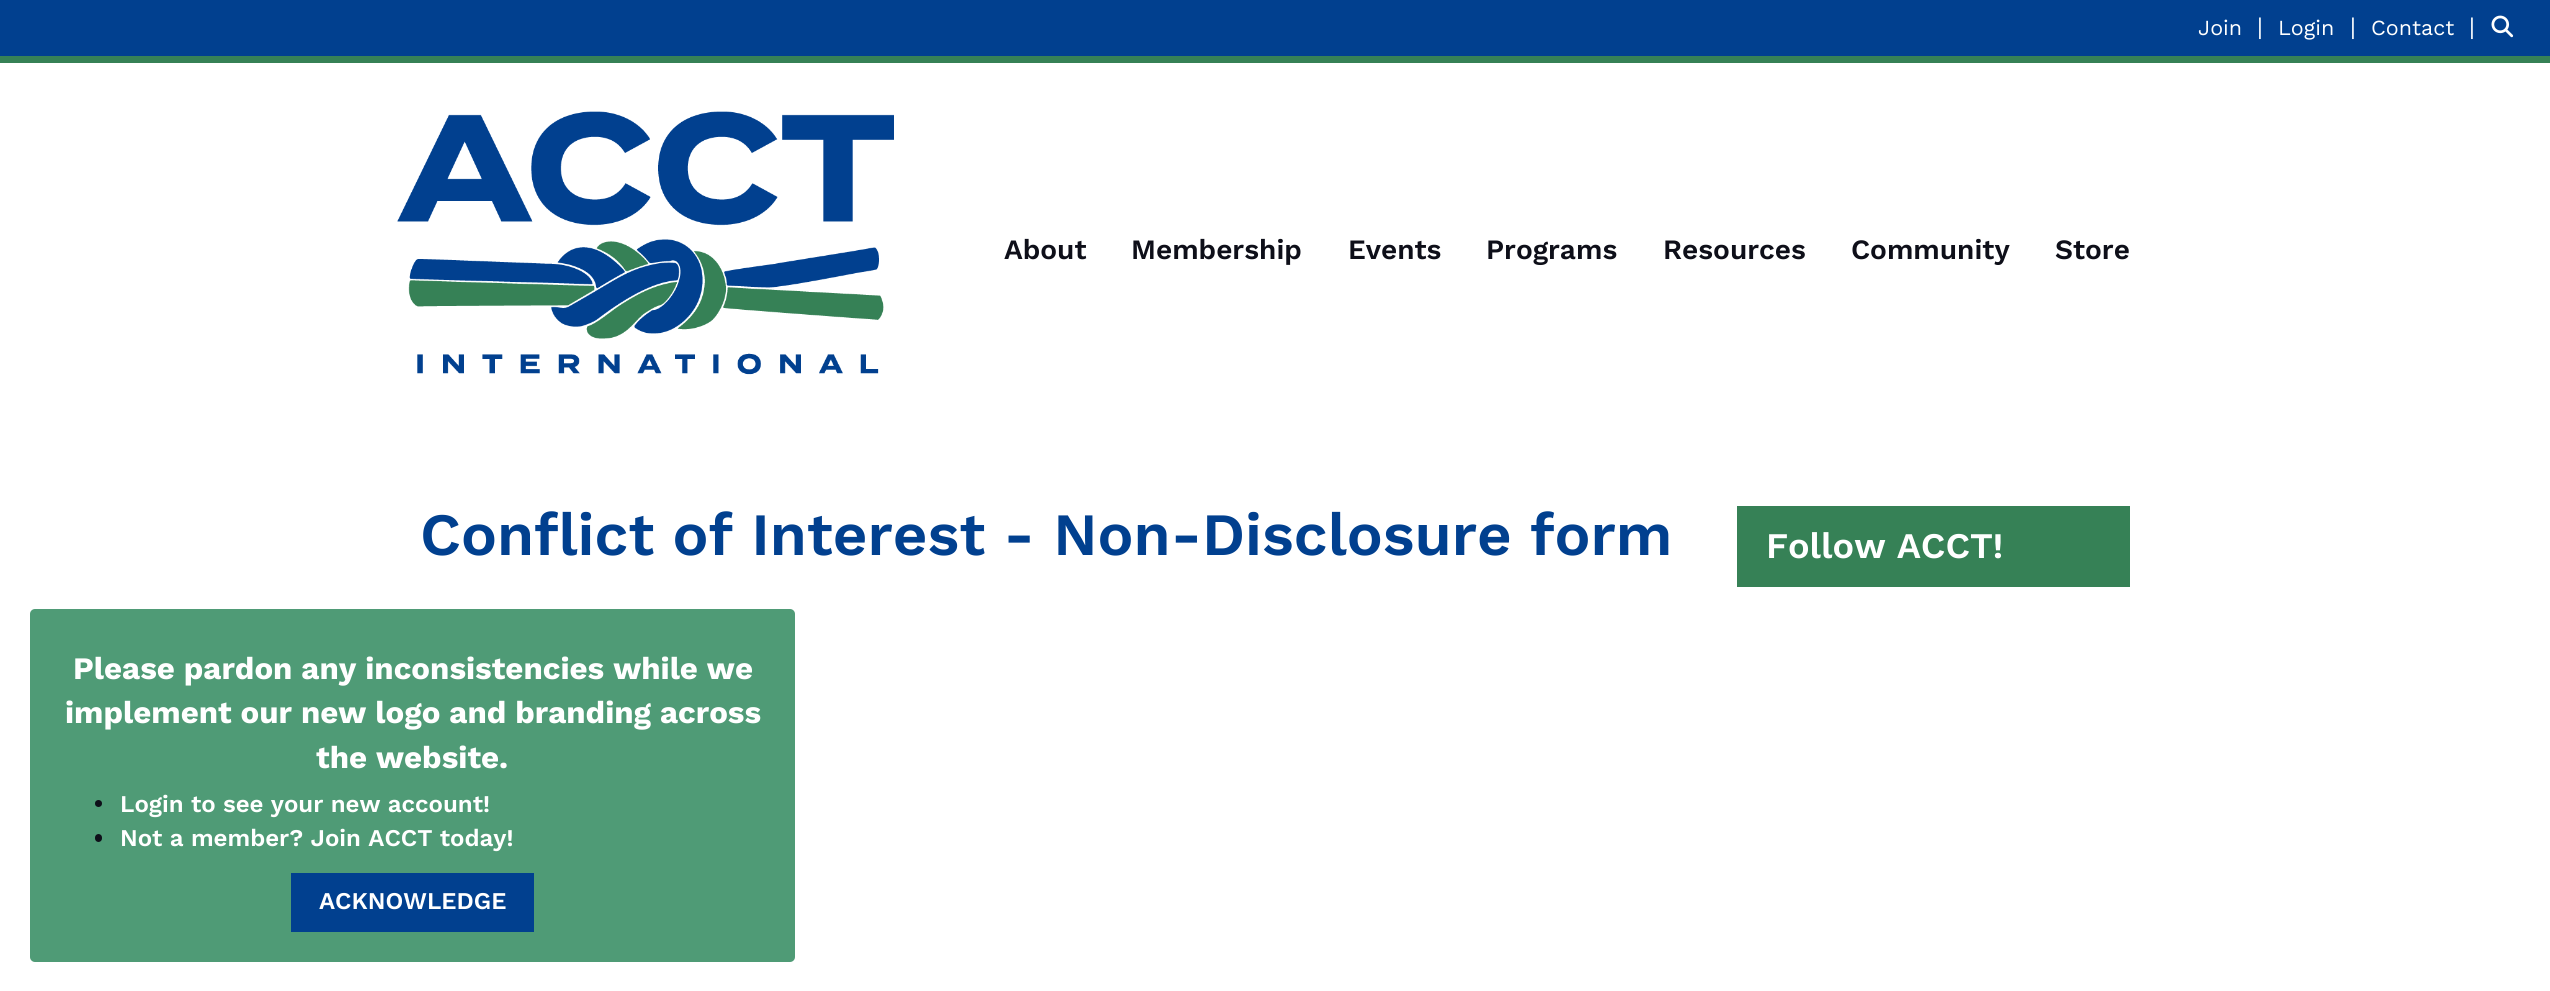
import math
import cairo


def round_path(ctx, x, y, w, h, r):
	ctx.new_sub_path()
	for i, (u, v) in enumerate([(x + w - r, y + h - r), (x + r, y + h - r), (x + r, y + r), (x + w - r, y + r)]):
		ctx.arc(u, v, r, i * math.pi / 2, (i + 1) * math.pi / 2)
	ctx.close_path()

def paste(ctx, path, x, y, w, h):
	ctx.save()
	ctx.set_source_surface(cairo.ImageSurface.create_from_png(path), x, y)
	ctx.rectangle(x, y, w, h)
	ctx.fill()
	ctx.restore()

def draw(ctx):
	ctx.set_source_rgb(1, 1, 1)
	ctx.paint()
	ctx.set_source_rgb(0.004, 0.251, 0.561)
	ctx.rectangle(0, 0, 2550, 56)
	ctx.fill()
	ctx.select_font_face('Work Sans')
	ctx.set_font_size(21.5)
	ctx.set_source_rgb(1, 1, 1)
	ctx.move_to(2198, 35)
	ctx.show_text('Join')
	ctx.set_font_size(24)
	ctx.move_to(2257, 35)
	ctx.show_text('|')
	ctx.set_font_size(21.5)
	ctx.move_to(2278, 35)
	ctx.show_text('Login')
	ctx.set_font_size(24)
	ctx.move_to(2350, 35)
	ctx.show_text('|')
	ctx.set_font_size(21.5)
	ctx.move_to(2371, 35)
	ctx.show_text('Contact')
	ctx.set_font_size(24)
	ctx.move_to(2469, 35)
	ctx.show_text('|')
	paste(ctx, 'media/1.png', 2491, 15, 23, 23)
	ctx.set_source_rgb(0.212, 0.506, 0.337)
	ctx.rectangle(0, 56, 2550, 7)
	ctx.fill()
	paste(ctx, 'media/2.png', 397, 111, 497, 264)
	ctx.select_font_face('Work Sans SemiBold')
	ctx.set_font_size(28)
	ctx.set_source_rgb(0.055, 0.059, 0.098)
	for x, y, s in [
		(1004, 259, 'About'),
		(1131, 259, 'Membership'),
		(1348, 259, 'Events'),
		(1486, 259, 'Programs'),
		(1663, 259, 'Resources'),
		(1851, 259, 'Community'),
		(2055, 259, 'Store'),
	]:
		ctx.move_to(x, y)
		ctx.show_text(s)
	ctx.set_font_size(60)
	ctx.set_source_rgb(0.004, 0.251, 0.561)
	ctx.move_to(420, 555)
	ctx.show_text('Conflict of Interest - Non-Disclosure form')
	ctx.set_source_rgb(0.212, 0.506, 0.337)
	ctx.rectangle(1737, 506, 393, 81)
	ctx.fill()
	ctx.set_font_size(36)
	ctx.set_source_rgb(1, 1, 1)
	ctx.move_to(1766, 558)
	ctx.show_text('Follow ACCT!')
	ctx.set_source_rgb(0.31, 0.608, 0.463)
	round_path(ctx, 30, 609, 765, 353, 5)
	ctx.fill()
	ctx.select_font_face('Work Sans', cairo.FONT_SLANT_NORMAL, cairo.FONT_WEIGHT_BOLD)
	ctx.set_font_size(31.2)
	ctx.set_source_rgb(1, 1, 1)
	for x, y, s in [
		(73, 679, 'Please pardon any inconsistencies while we'),
		(65, 723, 'implement our new logo and branding across'),
		(316, 768, 'the website.'),
	]:
		ctx.move_to(x, y)
		ctx.show_text(s)
	ctx.set_source_rgb(0.055, 0.059, 0.098)
	ctx.new_path()
	ctx.arc(98.5, 803.5, 3.5, 0, 2 * math.pi)
	ctx.fill()
	ctx.select_font_face('Work Sans SemiBold')
	ctx.set_font_size(24)
	ctx.set_source_rgb(1, 1, 1)
	ctx.move_to(120, 812)
	ctx.show_text('Login to see your new account!')
	ctx.set_source_rgb(0.055, 0.059, 0.098)
	round_path(ctx, 95, 834, 7, 8, 3.5)
	ctx.fill()
	ctx.set_source_rgb(1, 1, 1)
	ctx.move_to(120, 846)
	ctx.show_text('Not a member? Join ACCT today!')
	ctx.set_source_rgb(0.004, 0.251, 0.561)
	ctx.rectangle(291, 873, 243, 59)
	ctx.fill()
	ctx.set_source_rgb(1, 1, 1)
	ctx.move_to(319, 909)
	ctx.show_text('ACKNOWLEDGE')


surface = cairo.ImageSurface(cairo.FORMAT_RGB24, 2550, 991)
ctx = cairo.Context(surface)
options = cairo.FontOptions()
options.set_hint_metrics(cairo.HINT_METRICS_OFF)
options.set_hint_style(cairo.HINT_STYLE_NONE)
ctx.set_font_options(options)
ctx.set_miter_limit(4)
draw(ctx)
surface.write_to_png('image.png')
